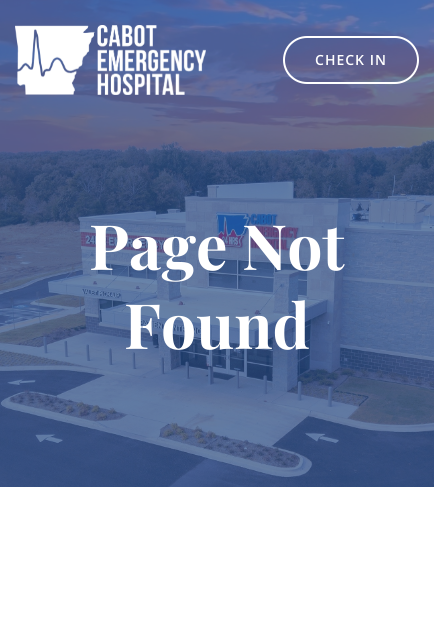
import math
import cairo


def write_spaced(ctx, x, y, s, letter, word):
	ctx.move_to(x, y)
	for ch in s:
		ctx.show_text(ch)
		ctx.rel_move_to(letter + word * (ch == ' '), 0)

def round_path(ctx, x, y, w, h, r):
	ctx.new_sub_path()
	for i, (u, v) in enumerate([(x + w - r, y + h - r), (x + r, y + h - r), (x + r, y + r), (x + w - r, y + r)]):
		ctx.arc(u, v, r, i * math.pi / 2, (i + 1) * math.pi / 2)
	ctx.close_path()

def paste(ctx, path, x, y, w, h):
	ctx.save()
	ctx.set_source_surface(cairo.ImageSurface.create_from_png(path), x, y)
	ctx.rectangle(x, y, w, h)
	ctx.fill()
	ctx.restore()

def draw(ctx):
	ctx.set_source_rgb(1, 1, 1)
	ctx.paint()
	paste(ctx, 'media/2.png', 0, 0, 434, 487)
	paste(ctx, 'media/1.png', 15, 25, 191, 70)
	round_path(ctx, 284, 37, 134, 46, 23)
	ctx.set_source_rgb(1, 1, 1)
	ctx.stroke()
	ctx.select_font_face('Open Sans SemiBold')
	ctx.set_font_size(14)
	write_spaced(ctx, 315, 65, 'CHECK IN', 1, 0)
	ctx.select_font_face('Playfair Display', cairo.FONT_SLANT_NORMAL, cairo.FONT_WEIGHT_BOLD)
	ctx.set_font_size(62.5)
	ctx.move_to(89, 270)
	ctx.show_text('Page Not')
	ctx.move_to(124, 349)
	ctx.show_text('Found')


surface = cairo.ImageSurface(cairo.FORMAT_RGB24, 434, 632)
ctx = cairo.Context(surface)
options = cairo.FontOptions()
options.set_hint_metrics(cairo.HINT_METRICS_OFF)
options.set_hint_style(cairo.HINT_STYLE_NONE)
ctx.set_font_options(options)
ctx.set_miter_limit(4)
draw(ctx)
surface.write_to_png('image.png')
